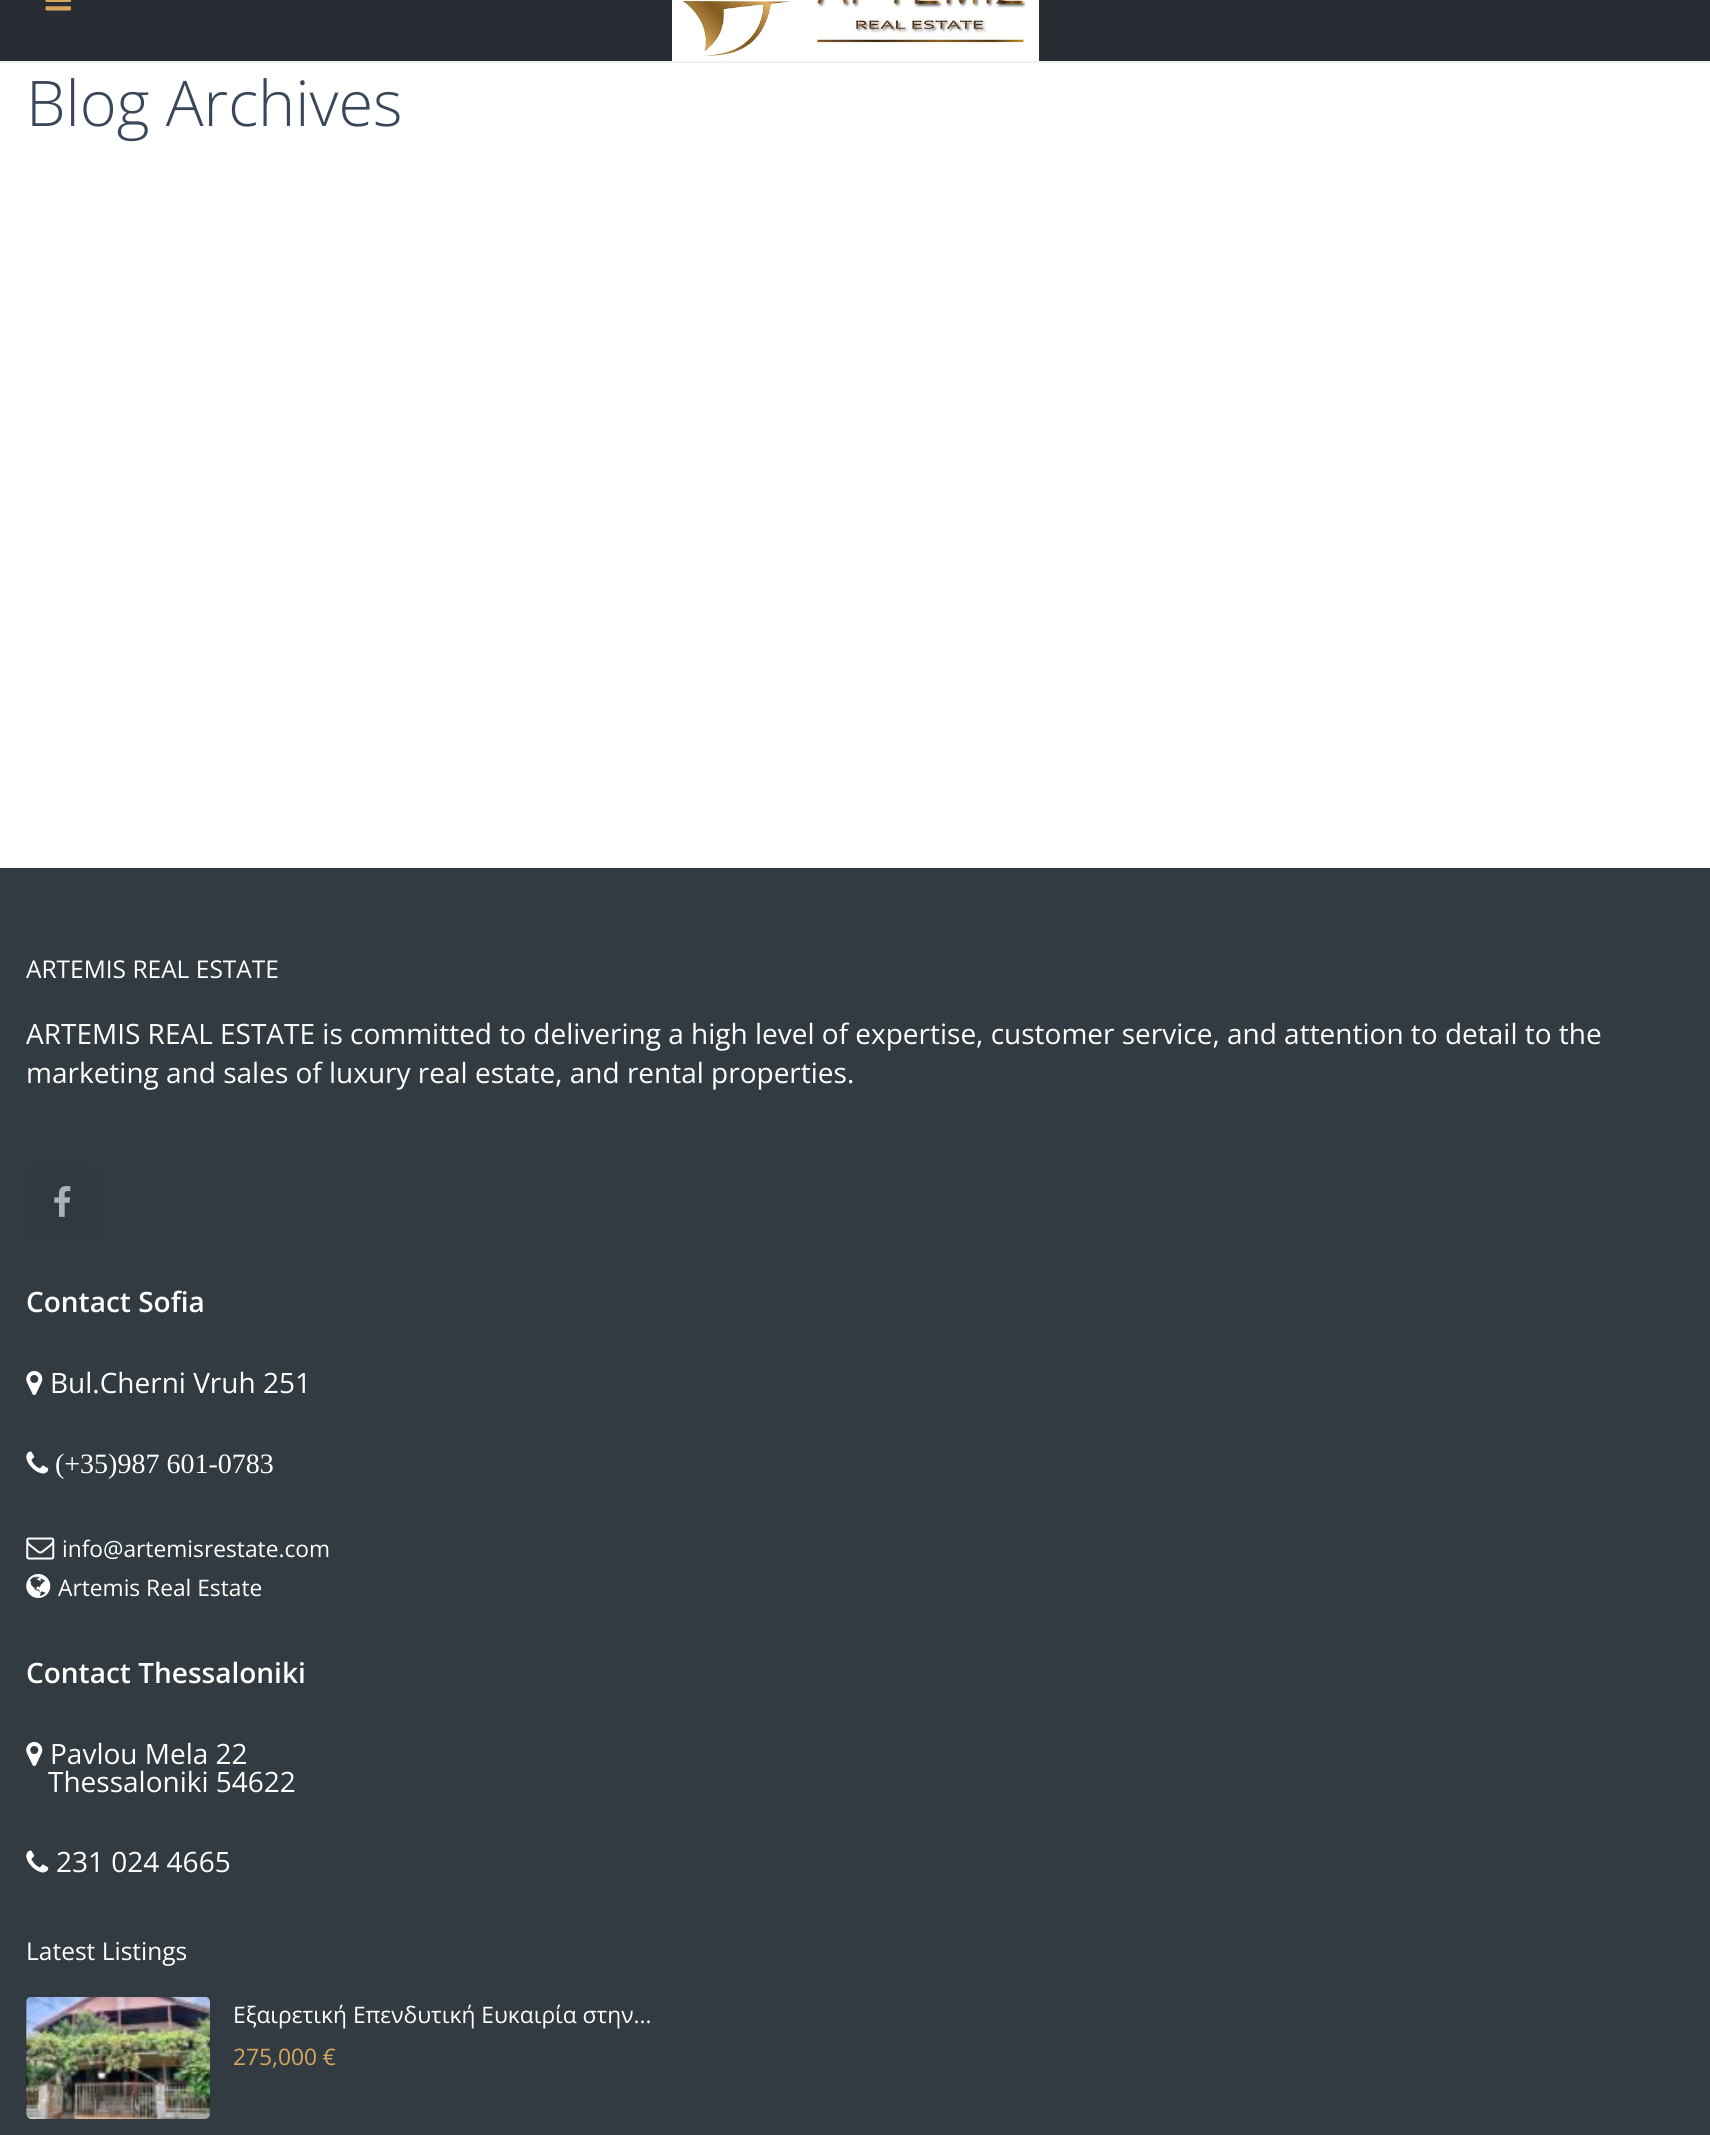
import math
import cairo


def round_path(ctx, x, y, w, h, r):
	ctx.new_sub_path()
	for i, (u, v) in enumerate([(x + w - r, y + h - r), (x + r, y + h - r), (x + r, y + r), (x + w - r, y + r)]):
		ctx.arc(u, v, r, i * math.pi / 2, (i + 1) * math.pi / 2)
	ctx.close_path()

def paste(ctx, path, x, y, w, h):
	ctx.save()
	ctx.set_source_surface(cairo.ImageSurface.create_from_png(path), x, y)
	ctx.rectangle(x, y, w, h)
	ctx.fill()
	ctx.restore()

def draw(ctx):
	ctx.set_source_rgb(0.196, 0.231, 0.255)
	ctx.paint()
	ctx.set_source_rgb(0.941, 0.941, 0.941)
	ctx.rectangle(0, 61, 1710, 2)
	ctx.fill()
	ctx.set_source_rgb(0.157, 0.176, 0.2)
	ctx.rectangle(0, 0, 1710, 61)
	ctx.fill()
	paste(ctx, 'media/1.png', 45, 0, 26, 11)
	paste(ctx, 'media/2.png', 672, 0, 367, 61)
	ctx.set_source_rgb(1, 1, 1)
	ctx.rectangle(0, 63, 1710, 805)
	ctx.fill()
	ctx.select_font_face('Open Sans Light')
	ctx.set_font_size(63)
	ctx.set_source_rgb(0.227, 0.275, 0.349)
	ctx.move_to(26, 126)
	ctx.show_text('Blog Archives')
	ctx.select_font_face('Open Sans')
	ctx.set_font_size(24.5)
	ctx.set_source_rgb(1, 1, 1)
	ctx.move_to(26, 978)
	ctx.show_text('ARTEMIS REAL ESTATE')
	ctx.set_font_size(28)
	ctx.move_to(26, 1044)
	ctx.show_text('ARTEMIS REAL ESTATE is committed to delivering a high level of expertise, customer service, and attention to detail to the')
	ctx.move_to(26, 1083)
	ctx.show_text('marketing and sales of luxury real estate, and rental properties.')
	ctx.set_source_rgb(0.196, 0.22, 0.251)
	round_path(ctx, 26, 1167, 72, 72, 5)
	ctx.fill()
	paste(ctx, 'media/3.png', 54, 1186, 17, 31)
	ctx.select_font_face('Open Sans SemiBold')
	ctx.set_source_rgb(1, 1, 1)
	ctx.move_to(26, 1312)
	ctx.show_text('Contact Sofia')
	paste(ctx, 'media/4.png', 26, 1371, 17, 24)
	ctx.select_font_face('Open Sans')
	ctx.move_to(50, 1393)
	ctx.show_text('Bul.Cherni Vruh 251')
	paste(ctx, 'media/5.png', 26, 1451, 23, 23)
	ctx.select_font_face('Liberation Serif')
	ctx.move_to(55, 1473)
	ctx.show_text('(+35)987 601-0783')
	paste(ctx, 'media/6.png', 26, 1537, 29, 23)
	ctx.select_font_face('Open Sans')
	ctx.set_font_size(22.75)
	ctx.move_to(62, 1557)
	ctx.show_text('info@artemisrestate.com')
	paste(ctx, 'media/7.png', 26, 1574, 25, 24)
	ctx.move_to(58, 1596)
	ctx.show_text('Artemis Real Estate')
	ctx.select_font_face('Open Sans SemiBold')
	ctx.set_font_size(28)
	ctx.move_to(26, 1683)
	ctx.show_text('Contact Thessaloniki')
	paste(ctx, 'media/4.png', 26, 1742, 17, 24)
	ctx.select_font_face('Open Sans')
	ctx.move_to(50, 1764)
	ctx.show_text('Pavlou Mela 22')
	ctx.move_to(48, 1792)
	ctx.show_text('Thessaloniki 54622')
	paste(ctx, 'media/5.png', 26, 1850, 23, 23)
	ctx.move_to(56, 1872)
	ctx.show_text('231 024 4665')
	ctx.set_font_size(24.5)
	ctx.move_to(26, 1960)
	ctx.show_text('Latest Listings')
	ctx.set_source_rgb(0, 0, 0)
	round_path(ctx, 26, 1997, 184, 122, 5)
	ctx.fill()
	paste(ctx, 'media/8.png', 26, 1997, 184, 122)
	ctx.set_font_size(22.75)
	ctx.set_source_rgb(1, 1, 1)
	ctx.move_to(233, 2023)
	ctx.show_text('Εξαιρετική Επενδυτική Ευκαιρία στην...')
	ctx.set_source_rgb(0.835, 0.655, 0.361)
	ctx.move_to(233, 2065)
	ctx.show_text('275,000 €')


surface = cairo.ImageSurface(cairo.FORMAT_RGB24, 1710, 2135)
ctx = cairo.Context(surface)
options = cairo.FontOptions()
options.set_hint_metrics(cairo.HINT_METRICS_OFF)
options.set_hint_style(cairo.HINT_STYLE_NONE)
ctx.set_font_options(options)
ctx.set_miter_limit(4)
draw(ctx)
surface.write_to_png('image.png')
